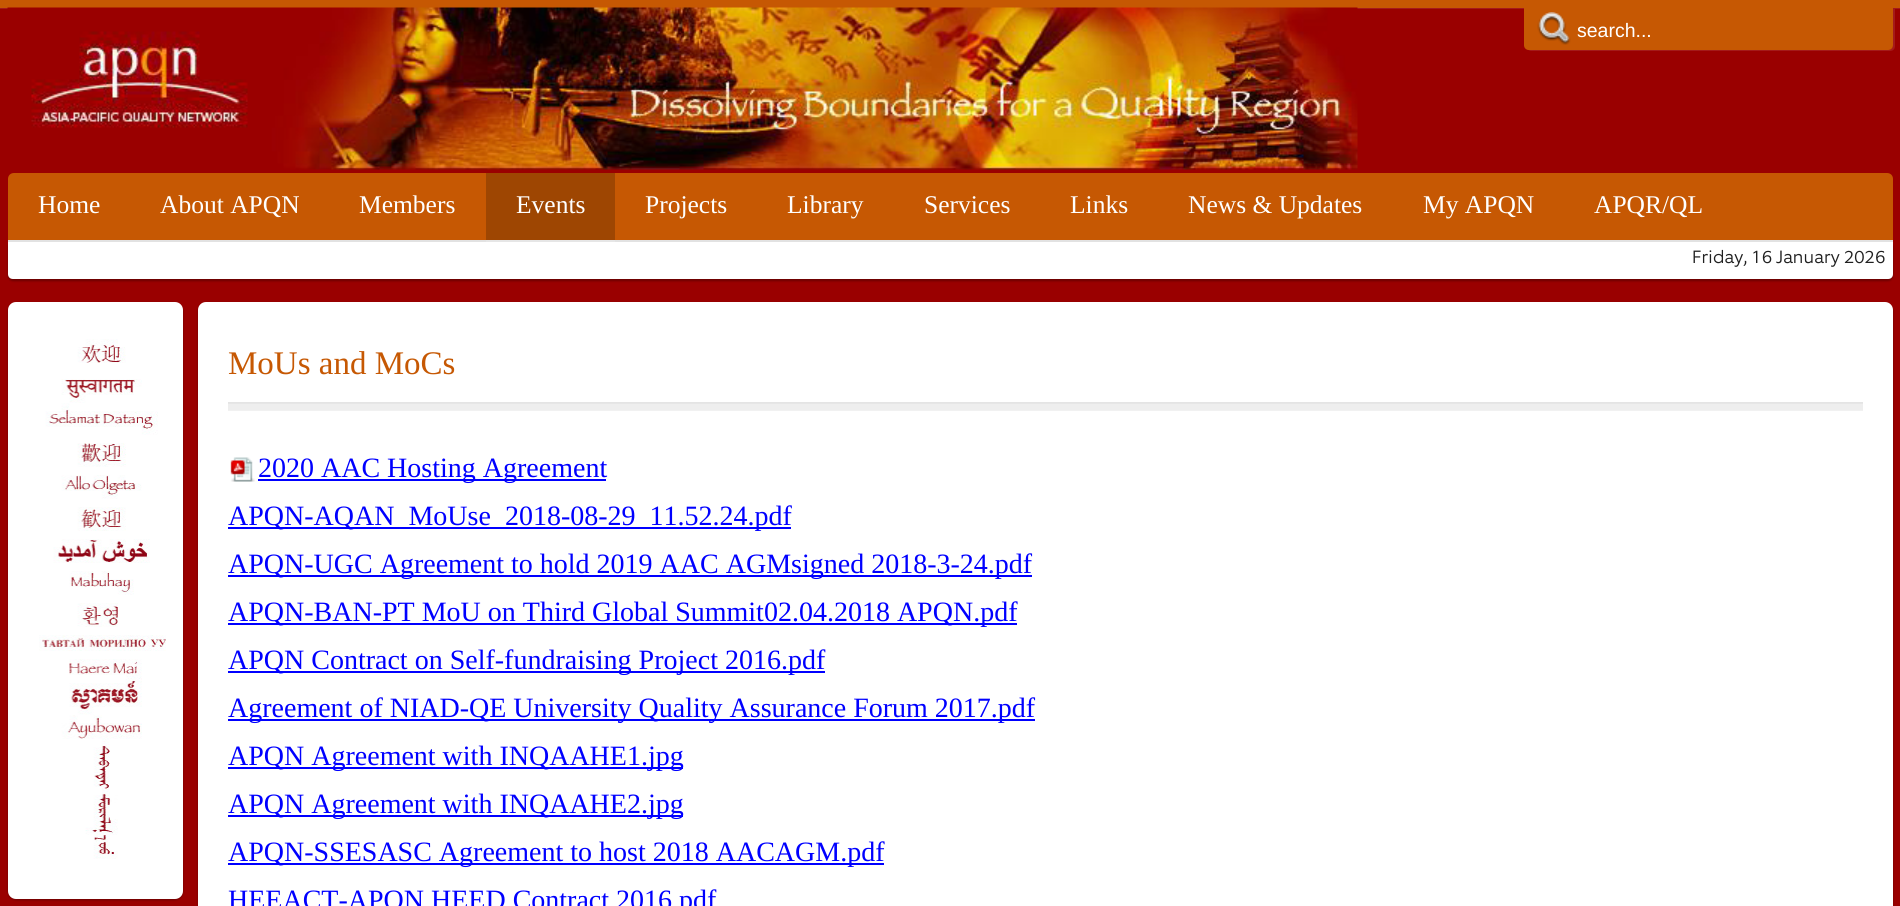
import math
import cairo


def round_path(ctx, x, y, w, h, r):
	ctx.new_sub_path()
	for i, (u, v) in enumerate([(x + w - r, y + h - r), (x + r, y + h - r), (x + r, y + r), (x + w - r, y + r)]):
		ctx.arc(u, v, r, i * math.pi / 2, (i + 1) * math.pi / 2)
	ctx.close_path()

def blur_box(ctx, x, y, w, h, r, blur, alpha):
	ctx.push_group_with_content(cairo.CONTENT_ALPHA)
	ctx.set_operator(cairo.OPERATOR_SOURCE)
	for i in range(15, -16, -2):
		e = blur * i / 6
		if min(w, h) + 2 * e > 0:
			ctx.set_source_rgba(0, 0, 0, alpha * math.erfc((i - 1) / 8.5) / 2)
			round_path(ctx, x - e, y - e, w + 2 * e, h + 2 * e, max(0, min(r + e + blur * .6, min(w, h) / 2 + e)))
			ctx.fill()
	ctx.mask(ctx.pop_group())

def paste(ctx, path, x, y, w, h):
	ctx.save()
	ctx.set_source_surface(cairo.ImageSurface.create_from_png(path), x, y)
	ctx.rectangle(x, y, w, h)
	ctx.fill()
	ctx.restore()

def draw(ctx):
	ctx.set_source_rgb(0.604, 0, 0)
	ctx.paint()
	ctx.set_source_rgb(0.643, 0.102, 0.102)
	ctx.new_path()
	ctx.move_to(0, 8)
	ctx.line_to(0, 9)
	ctx.line_to(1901, 9)
	ctx.line_to(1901, 2)
	ctx.line_to(1900, 2)
	ctx.line_to(1900, 8)
	ctx.close_path()
	ctx.fill()
	ctx.set_source_rgb(0.776, 0.345, 0.012)
	ctx.rectangle(0, 0, 1900, 8)
	ctx.fill()
	paste(ctx, 'media/1.png', 7, 7, 1351, 163)
	ctx.set_source_rgb(0.643, 0.102, 0.102)
	ctx.new_path()
	ctx.move_to(1527, 49)
	ctx.curve_to(1528, 50, 1530, 51, 1531, 51)
	ctx.line_to(1890, 51)
	ctx.curve_to(1893, 51, 1895, 49, 1895, 46)
	ctx.line_to(1895, 9)
	ctx.line_to(1893, 9)
	ctx.line_to(1893, 45)
	ctx.curve_to(1893, 47, 1891, 50, 1888, 50)
	ctx.close_path()
	ctx.fill()
	ctx.set_source_rgb(0.776, 0.345, 0.012)
	ctx.new_path()
	ctx.move_to(1524, 8)
	ctx.line_to(1893, 8)
	ctx.line_to(1893, 45)
	ctx.curve_to(1893, 48, 1891, 50, 1888, 50)
	ctx.line_to(1529, 50)
	ctx.curve_to(1526, 50, 1524, 48, 1524, 45)
	ctx.close_path()
	ctx.fill()
	paste(ctx, 'media/2.png', 1537, 12, 34, 33)
	ctx.select_font_face('Liberation Sans')
	ctx.set_font_size(19.5)
	ctx.set_source_rgb(1, 1, 1)
	ctx.move_to(1577, 37)
	ctx.show_text('search...')
	ctx.set_source_rgb(0.776, 0.345, 0.012)
	ctx.new_path()
	ctx.move_to(14, 173)
	ctx.line_to(1887, 173)
	ctx.curve_to(1890.5, 173, 1893, 175.5, 1893, 179)
	ctx.line_to(1893, 240)
	ctx.line_to(8, 240)
	ctx.line_to(8, 179)
	ctx.curve_to(8, 175.5, 10.5, 173, 14, 173)
	ctx.close_path()
	ctx.fill()
	ctx.select_font_face('Liberation Serif')
	ctx.set_font_size(25.5)
	ctx.set_source_rgb(1, 1, 1)
	for x, y, s in [
		(38, 213, 'Home'),
		(160, 213, 'About APQN'),
		(359, 213, 'Members'),
	]:
		ctx.move_to(x, y)
		ctx.show_text(s)
	ctx.set_source_rgb(0, 0, 0)
	blur_box(ctx, 8, 242, 1885, 39, 5, 1, 0.3)
	ctx.set_source_rgb(1, 1, 1)
	ctx.new_path()
	ctx.move_to(8, 240)
	ctx.line_to(1893, 240)
	ctx.line_to(1893, 274)
	ctx.curve_to(1893, 277, 1891, 279, 1888, 279)
	ctx.line_to(13, 279)
	ctx.curve_to(10, 279, 8, 277, 8, 274)
	ctx.close_path()
	ctx.fill()
	ctx.set_source_rgb(0.886, 0.886, 0.886)
	ctx.rectangle(8, 240, 1885, 2)
	ctx.fill()
	ctx.set_source_rgb(0.902, 0.902, 0.902)
	ctx.rectangle(486, 240, 129, 2)
	ctx.fill()
	ctx.set_source_rgb(0.62, 0.275, 0.008)
	ctx.rectangle(486, 173, 129, 67)
	ctx.fill()
	ctx.set_source_rgb(1, 1, 1)
	for x, y, s in [
		(516, 213, 'Events'),
		(645, 213, 'Projects'),
		(787, 213, 'Library'),
		(924, 213, 'Services'),
		(1070, 213, 'Links'),
		(1188, 213, 'News & Updates'),
		(1423, 213, 'My APQN'),
		(1594, 213, 'APQR/QL'),
	]:
		ctx.move_to(x, y)
		ctx.show_text(s)
	ctx.select_font_face('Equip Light')
	ctx.set_font_size(18)
	ctx.set_source_rgb(0.125, 0.125, 0.125)
	ctx.move_to(1692, 263)
	ctx.show_text('Friday, 16 January 2026')
	ctx.set_source_rgb(0, 0, 0)
	blur_box(ctx, 8, 303, 175, 597, 8, 1, 0.3)
	ctx.set_source_rgb(1, 1, 1)
	round_path(ctx, 8, 302, 175, 597, 8)
	ctx.fill()
	paste(ctx, 'media/3.png', 39, 339, 127, 520)
	ctx.set_source_rgb(0, 0, 0)
	blur_box(ctx, 198, 303, 1695, 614, 8, 1, 0.3)
	ctx.set_source_rgb(1, 1, 1)
	round_path(ctx, 198, 302, 1695, 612, 8)
	ctx.fill()
	paste(ctx, 'media/4.png', 228, 402, 1635, 9)
	ctx.select_font_face('Liberation Serif')
	ctx.set_font_size(33)
	ctx.set_source_rgb(0.776, 0.345, 0.012)
	ctx.move_to(228, 374)
	ctx.show_text('MoUs and MoCs')
	paste(ctx, 'media/5.png', 230, 457, 25, 25)
	ctx.set_source_rgb(0, 0, 1)
	ctx.rectangle(258, 479, 348, 2)
	ctx.fill()
	ctx.set_font_size(28)
	ctx.move_to(258, 477)
	ctx.show_text('2020 AAC Hosting Agreement')
	ctx.rectangle(228, 527, 563, 2)
	ctx.fill()
	ctx.move_to(228, 525)
	ctx.show_text('APQN-AQAN_MoUse_2018-08-29_11.52.24.pdf')
	ctx.rectangle(228, 575, 804, 2)
	ctx.fill()
	ctx.move_to(228, 573)
	ctx.show_text('APQN-UGC Agreement to hold 2019 AAC AGMsigned 2018-3-24.pdf')
	ctx.rectangle(228, 623, 789, 2)
	ctx.fill()
	ctx.move_to(228, 621)
	ctx.show_text('APQN-BAN-PT MoU on Third Global Summit02.04.2018 APQN.pdf')
	ctx.rectangle(228, 671, 597, 2)
	ctx.fill()
	ctx.move_to(228, 669)
	ctx.show_text('APQN Contract on Self-fundraising Project 2016.pdf')
	ctx.rectangle(228, 719, 807, 2)
	ctx.fill()
	ctx.move_to(228, 717)
	ctx.show_text('Agreement of NIAD-QE University Quality Assurance Forum 2017.pdf')
	ctx.rectangle(228, 767, 455, 2)
	ctx.fill()
	ctx.move_to(228, 765)
	ctx.show_text('APQN Agreement with INQAAHE1.jpg')
	ctx.rectangle(228, 815, 455, 2)
	ctx.fill()
	ctx.move_to(228, 813)
	ctx.show_text('APQN Agreement with INQAAHE2.jpg')
	ctx.rectangle(228, 863, 656, 2)
	ctx.fill()
	ctx.move_to(228, 861)
	ctx.show_text('APQN-SSESASC Agreement to host 2018 AACAGM.pdf')
	ctx.move_to(228, 909)
	ctx.show_text('HEEACT-APQN HEED Contract 2016.pdf')


surface = cairo.ImageSurface(cairo.FORMAT_RGB24, 1900, 906)
ctx = cairo.Context(surface)
options = cairo.FontOptions()
options.set_hint_metrics(cairo.HINT_METRICS_OFF)
options.set_hint_style(cairo.HINT_STYLE_NONE)
ctx.set_font_options(options)
ctx.set_miter_limit(4)
draw(ctx)
surface.write_to_png('image.png')
